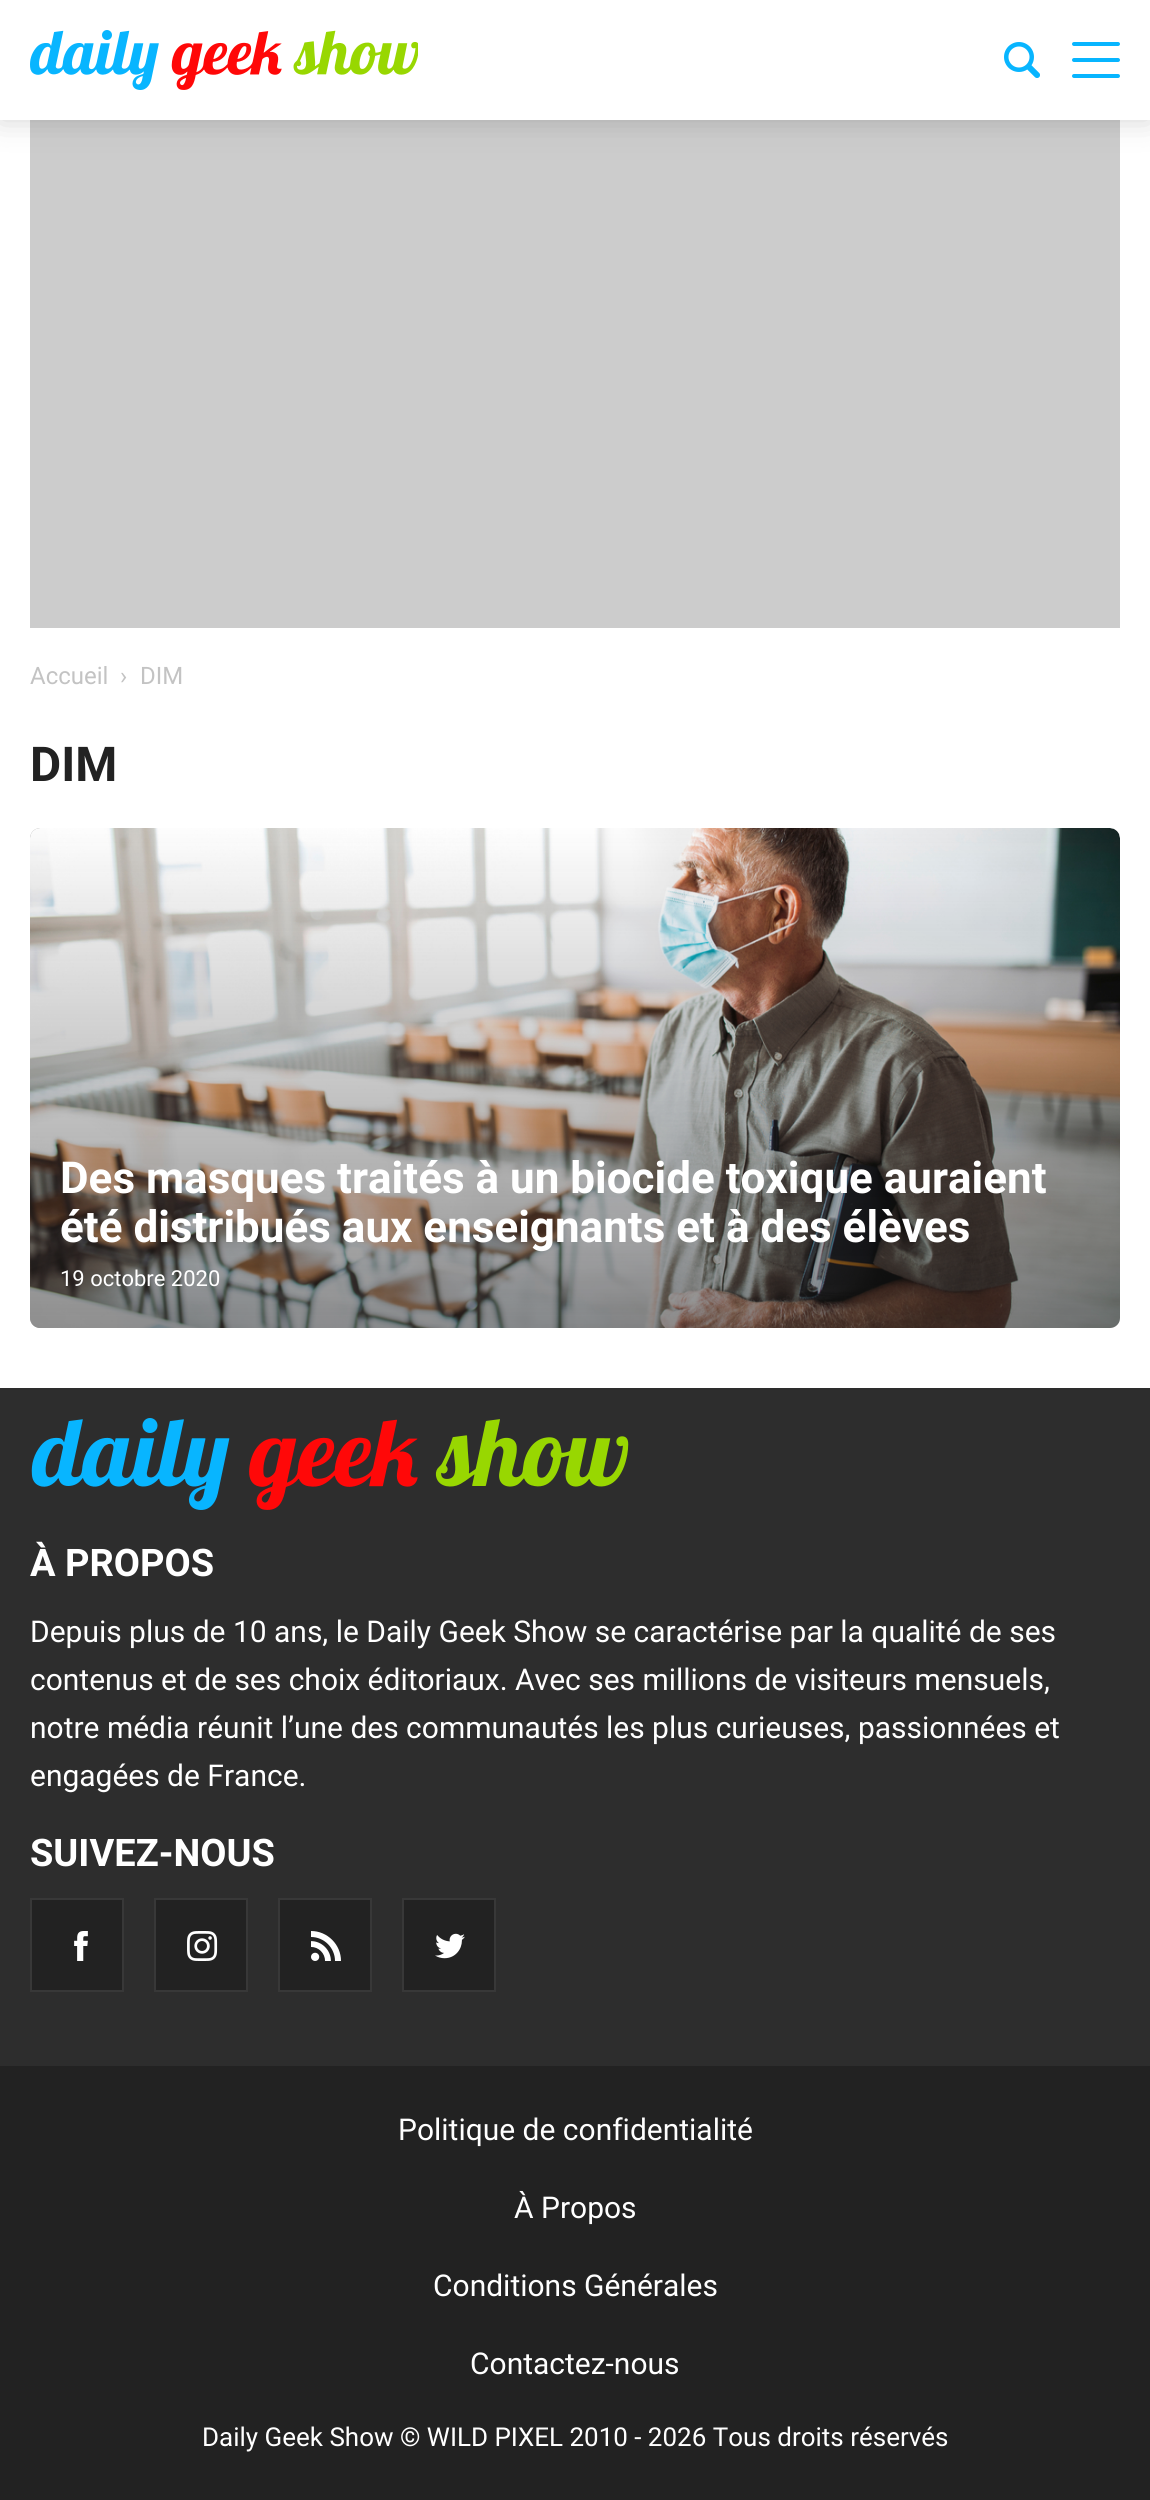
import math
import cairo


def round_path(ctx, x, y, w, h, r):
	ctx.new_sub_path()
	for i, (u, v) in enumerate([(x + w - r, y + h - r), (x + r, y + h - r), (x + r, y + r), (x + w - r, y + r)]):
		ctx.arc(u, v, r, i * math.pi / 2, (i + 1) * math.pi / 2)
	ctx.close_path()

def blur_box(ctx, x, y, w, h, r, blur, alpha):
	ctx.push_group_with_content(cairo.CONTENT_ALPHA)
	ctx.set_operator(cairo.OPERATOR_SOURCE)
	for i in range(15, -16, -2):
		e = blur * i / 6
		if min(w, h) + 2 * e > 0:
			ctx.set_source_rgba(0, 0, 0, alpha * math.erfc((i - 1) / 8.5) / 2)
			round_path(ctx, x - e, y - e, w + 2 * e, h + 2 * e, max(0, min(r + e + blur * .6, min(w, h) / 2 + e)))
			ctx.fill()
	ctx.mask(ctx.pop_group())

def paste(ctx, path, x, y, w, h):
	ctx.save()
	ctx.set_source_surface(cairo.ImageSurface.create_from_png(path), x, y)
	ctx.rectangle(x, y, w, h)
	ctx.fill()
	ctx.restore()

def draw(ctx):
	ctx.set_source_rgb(1, 1, 1)
	ctx.paint()
	ctx.set_source_rgb(0.8, 0.8, 0.8)
	ctx.rectangle(30, 120, 1090, 508)
	ctx.fill()
	ctx.set_source_rgb(0.133, 0.133, 0.133)
	blur_box(ctx, 0, 0, 1150, 120, 0, 15, 0.2)
	ctx.set_source_rgb(1, 1, 1)
	ctx.rectangle(0, 0, 1150, 120)
	ctx.fill()
	paste(ctx, 'media/1.png', 30, 30, 388, 60)
	paste(ctx, 'media/2.png', 1004, 42, 36, 36)
	ctx.set_source_rgb(0.031, 0.71, 1)
	round_path(ctx, 1072, 58, 48, 4, 2)
	ctx.fill()
	round_path(ctx, 1072, 42, 48, 4, 2)
	ctx.fill()
	round_path(ctx, 1072, 74, 48, 4, 2)
	ctx.fill()
	ctx.select_font_face('Roboto')
	ctx.set_font_size(24)
	ctx.set_source_rgb(0.765, 0.765, 0.765)
	for x, y, s in [
		(30, 684, 'Accueil'),
		(120, 684, '›'),
		(140, 684, 'DIM'),
	]:
		ctx.move_to(x, y)
		ctx.show_text(s)
	ctx.select_font_face('Roboto', cairo.FONT_SLANT_NORMAL, cairo.FONT_WEIGHT_BOLD)
	ctx.set_font_size(48)
	ctx.set_source_rgb(0.133, 0.133, 0.133)
	ctx.move_to(30, 781)
	ctx.show_text('DIM')
	ctx.set_source_rgb(0.8, 0.8, 0.8)
	round_path(ctx, 30, 828, 1090, 500, 10)
	ctx.fill()
	paste(ctx, 'media/3.png', 30, 828, 1090, 500)
	gradient = cairo.LinearGradient(575, 828, 575, 1328)
	gradient.add_color_stop_rgba(0, 0.133, 0.133, 0.133, 0)
	gradient.add_color_stop_rgba(1, 0.133, 0.133, 0.133, 0.5)
	ctx.set_source(gradient)
	round_path(ctx, 30, 828, 1090, 500, 10)
	ctx.fill()
	ctx.set_font_size(44)
	ctx.set_source_rgb(1, 1, 1)
	ctx.move_to(60, 1193)
	ctx.show_text('Des masques traités à un biocide toxique auraient')
	ctx.move_to(60, 1242)
	ctx.show_text('été distribués aux enseignants et à des élèves')
	ctx.select_font_face('Roboto')
	ctx.set_font_size(22)
	ctx.move_to(60, 1286)
	ctx.show_text('19 octobre 2020')
	ctx.set_source_rgb(0.176, 0.176, 0.176)
	ctx.rectangle(0, 1388, 1150, 678)
	ctx.fill()
	paste(ctx, 'media/4.png', 31, 1418, 598, 92)
	ctx.select_font_face('Roboto', cairo.FONT_SLANT_NORMAL, cairo.FONT_WEIGHT_BOLD)
	ctx.set_font_size(38)
	ctx.set_source_rgb(1, 1, 1)
	ctx.move_to(30, 1576)
	ctx.show_text('À PROPOS')
	ctx.select_font_face('Roboto')
	ctx.set_font_size(30)
	for x, y, s in [
		(30, 1642, 'Depuis plus de 10 ans, le Daily Geek Show se caractérise par la qualité de ses'),
		(30, 1690, 'contenus et de ses choix éditoriaux. Avec ses millions de visiteurs mensuels,'),
		(30, 1738, 'notre média réunit l’une des communautés les plus curieuses, passionnées et'),
		(30, 1786, 'engagées de France.'),
	]:
		ctx.move_to(x, y)
		ctx.show_text(s)
	ctx.select_font_face('Roboto', cairo.FONT_SLANT_NORMAL, cairo.FONT_WEIGHT_BOLD)
	ctx.set_font_size(38)
	ctx.move_to(30, 1866)
	ctx.show_text('SUIVEZ-NOUS')
	ctx.set_source_rgb(0.133, 0.133, 0.133)
	ctx.rectangle(31, 1899, 92, 92)
	ctx.fill_preserve()
	ctx.set_source_rgb(0.22, 0.22, 0.22)
	ctx.stroke()
	paste(ctx, 'media/5.png', 74, 1931, 14, 30)
	ctx.set_source_rgb(0.133, 0.133, 0.133)
	ctx.rectangle(155, 1899, 92, 92)
	ctx.fill_preserve()
	ctx.set_source_rgb(0.22, 0.22, 0.22)
	ctx.stroke()
	paste(ctx, 'media/6.png', 187, 1931, 31, 30)
	ctx.set_source_rgb(0.133, 0.133, 0.133)
	ctx.rectangle(279, 1899, 92, 92)
	ctx.fill_preserve()
	ctx.set_source_rgb(0.22, 0.22, 0.22)
	ctx.stroke()
	paste(ctx, 'media/7.png', 311, 1931, 30, 30)
	ctx.set_source_rgb(0.133, 0.133, 0.133)
	ctx.rectangle(403, 1899, 92, 92)
	ctx.fill_preserve()
	ctx.set_source_rgb(0.22, 0.22, 0.22)
	ctx.stroke()
	paste(ctx, 'media/8.png', 435, 1933, 30, 26)
	ctx.set_source_rgb(0.133, 0.133, 0.133)
	ctx.rectangle(0, 2066, 1150, 434)
	ctx.fill()
	ctx.select_font_face('Roboto')
	ctx.set_font_size(30)
	ctx.set_source_rgb(1, 1, 1)
	for x, y, s in [
		(398, 2140, 'Politique de confidentialité'),
		(514, 2218, 'À Propos'),
		(433, 2296, 'Conditions Générales'),
		(470, 2374, 'Contactez-nous'),
	]:
		ctx.move_to(x, y)
		ctx.show_text(s)
	ctx.set_font_size(26)
	ctx.move_to(202, 2446)
	ctx.show_text('Daily Geek Show © WILD PIXEL 2010 - 2026 Tous droits réservés')


surface = cairo.ImageSurface(cairo.FORMAT_RGB24, 1150, 2500)
ctx = cairo.Context(surface)
options = cairo.FontOptions()
options.set_hint_metrics(cairo.HINT_METRICS_OFF)
options.set_hint_style(cairo.HINT_STYLE_NONE)
ctx.set_font_options(options)
ctx.set_miter_limit(4)
draw(ctx)
surface.write_to_png('image.png')
